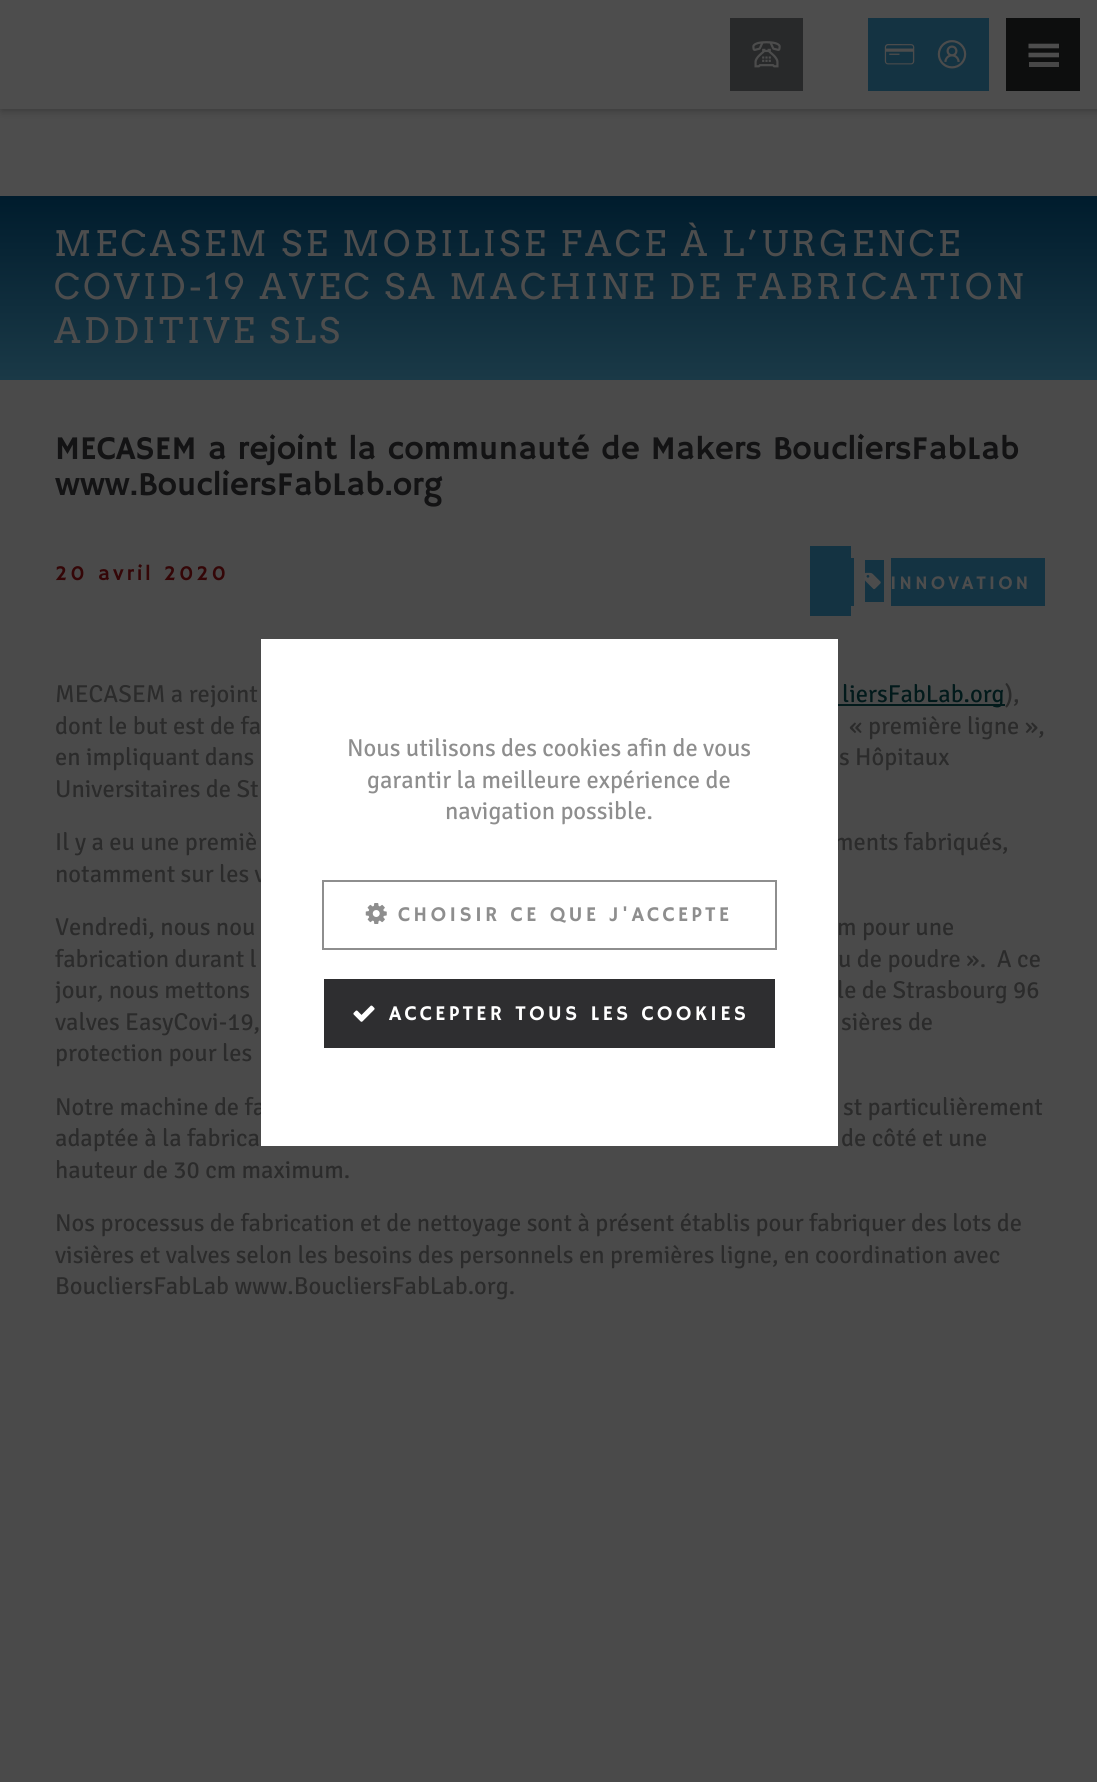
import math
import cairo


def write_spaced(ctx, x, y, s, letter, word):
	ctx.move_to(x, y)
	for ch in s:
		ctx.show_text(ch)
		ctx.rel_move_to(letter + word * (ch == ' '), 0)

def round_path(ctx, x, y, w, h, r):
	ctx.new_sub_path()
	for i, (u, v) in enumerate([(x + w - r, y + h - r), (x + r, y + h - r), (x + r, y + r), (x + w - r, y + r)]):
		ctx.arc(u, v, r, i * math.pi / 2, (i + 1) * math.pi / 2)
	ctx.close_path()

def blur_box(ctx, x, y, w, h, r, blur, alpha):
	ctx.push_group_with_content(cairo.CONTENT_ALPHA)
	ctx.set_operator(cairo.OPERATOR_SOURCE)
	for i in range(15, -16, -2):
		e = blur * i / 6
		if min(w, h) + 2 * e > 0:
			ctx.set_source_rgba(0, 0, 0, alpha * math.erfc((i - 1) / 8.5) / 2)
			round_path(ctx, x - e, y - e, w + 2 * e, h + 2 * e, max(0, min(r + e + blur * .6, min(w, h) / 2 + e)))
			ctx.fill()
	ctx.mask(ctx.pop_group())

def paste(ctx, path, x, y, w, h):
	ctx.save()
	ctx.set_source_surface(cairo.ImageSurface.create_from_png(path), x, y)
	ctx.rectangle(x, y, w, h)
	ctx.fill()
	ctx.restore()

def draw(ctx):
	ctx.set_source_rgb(0.29, 0.29, 0.29)
	ctx.paint()
	ctx.set_source_rgb(0.302, 0.302, 0.302)
	ctx.rectangle(0, 109, 1097, 87)
	ctx.fill()
	ctx.set_source_rgb(0, 0, 0)
	blur_box(ctx, 2, 2, 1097, 108, 0, 4.5, 0.3)
	ctx.set_source_rgb(0.302, 0.302, 0.302)
	ctx.rectangle(0, 0, 1097, 109)
	ctx.fill()
	ctx.set_source_rgb(0.157, 0.161, 0.165)
	ctx.rectangle(730, 18, 73, 73)
	ctx.fill()
	paste(ctx, 'media/1.png', 752, 41, 29, 27)
	ctx.set_source_rgb(0.082, 0.2, 0.259)
	ctx.rectangle(868, 18, 121, 73)
	ctx.fill()
	paste(ctx, 'media/2.png', 884, 44, 31, 21)
	paste(ctx, 'media/3.png', 937, 40, 30, 29)
	ctx.set_source_rgb(0.051, 0.055, 0.055)
	ctx.rectangle(1006, 18, 74, 73)
	ctx.fill()
	ctx.new_path()
	ctx.move_to(1028.5, 55)
	ctx.line_to(1059, 55)
	ctx.move_to(1028.5, 46)
	ctx.line_to(1059, 46)
	ctx.set_source_rgb(0.302, 0.302, 0.302)
	ctx.set_line_width(4.6)
	ctx.stroke()
	ctx.set_source_rgb(0.278, 0.278, 0.278)
	ctx.rectangle(1029, 62, 30, 5)
	ctx.fill()
	gradient = cairo.LinearGradient(549, 196, 549, 380)
	gradient.add_color_stop_rgba(0, 0, 0.11, 0.176, 1)
	gradient.add_color_stop_rgba(1, 0.102, 0.224, 0.278, 1)
	ctx.set_source(gradient)
	ctx.rectangle(0, 196, 1097, 184)
	ctx.fill()
	ctx.select_font_face('Arvo')
	ctx.set_font_size(35)
	ctx.set_source_rgb(0.302, 0.302, 0.302)
	for x, y, s in [
		(54, 256, 'MECASEM SE MOBILISE FACE À L’URGENCE'),
		(54, 299, 'COVID-19 AVEC SA MACHINE DE FABRICATION'),
		(54, 343, 'ADDITIVE SLS'),
	]:
		write_spaced(ctx, x, y, s, 3.5, 0)
	ctx.select_font_face('Hammersmith One')
	ctx.set_font_size(33.25)
	ctx.set_source_rgb(0.075, 0.078, 0.082)
	ctx.move_to(55, 459)
	ctx.show_text('MECASEM a rejoint la communauté de Makers BoucliersFabLab')
	ctx.move_to(55, 495)
	ctx.show_text('www.BoucliersFabLab.org')
	ctx.set_font_size(21)
	ctx.set_source_rgb(0.204, 0.024, 0.031)
	write_spaced(ctx, 55, 580, '20 avril 2020', 3.15, 0)
	ctx.set_source_rgb(0.082, 0.2, 0.259)
	ctx.rectangle(810, 546, 41, 70)
	ctx.rectangle(865, 560, 19, 42)
	ctx.rectangle(891, 558, 154, 48)
	ctx.fill()
	ctx.new_path()
	ctx.move_to(828, 558)
	ctx.line_to(850, 558)
	ctx.line_to(850, 606)
	ctx.line_to(828, 606)
	ctx.line_to(854, 606)
	ctx.line_to(854, 558)
	ctx.close_path()
	ctx.fill()
	paste(ctx, 'media/4.png', 864, 572, 17, 18)
	ctx.set_font_size(19.25)
	ctx.set_source_rgb(0.302, 0.302, 0.302)
	write_spaced(ctx, 890, 589, 'INNOVATION', 2.9, 0)
	ctx.select_font_face('Signika Negative')
	ctx.set_font_size(24.5)
	ctx.set_source_rgb(0.169, 0.169, 0.169)
	ctx.move_to(55, 702)
	ctx.show_text('MECASEM a rejoint')
	ctx.set_source_rgb(0.008, 0.102, 0.106)
	ctx.rectangle(838, 704, 167, 2)
	ctx.fill()
	ctx.move_to(842, 702)
	ctx.show_text('liersFabLab.org')
	ctx.set_source_rgb(0.169, 0.169, 0.169)
	for x, y, s in [
		(1005, 702, '),'),
		(55, 734, 'dont le but est de fa'),
		(849, 734, '« première ligne »,'),
		(55, 765, 'en impliquant dans'),
		(839, 765, 's Hôpitaux'),
		(55, 797, 'Universitaires de St'),
		(55, 850, 'Il y a eu une premiè'),
		(834, 850, 'ments fabriqués,'),
		(55, 882, 'notamment sur les v'),
		(55, 935, 'Vendredi, nous nou'),
		(837, 935, 'm pour une'),
		(55, 967, 'fabrication durant l'),
		(838, 967, 'u de poudre ».  A ce'),
		(55, 998, 'jour, nous mettons'),
		(837, 998, 'le de Strasbourg 96'),
		(55, 1030, 'valves EasyCovi-19,'),
		(841, 1030, 'sières de'),
		(55, 1061, 'protection pour les'),
		(55, 1115, 'Notre machine de fa'),
		(843, 1115, 'st particulièrement'),
		(55, 1146, 'adaptée à la fabrica'),
		(841, 1146, 'de côté et une'),
		(55, 1178, 'hauteur de 30 cm maximum.'),
		(55, 1231, 'Nos processus de fabrication et de nettoyage sont à présent établis pour fabriquer des lots de'),
		(55, 1263, 'visières et valves selon les besoins des personnels en premières ligne, en coordination avec'),
		(55, 1294, 'BoucliersFabLab www.BoucliersFabLab.org.'),
	]:
		ctx.move_to(x, y)
		ctx.show_text(s)
	ctx.set_source_rgb(1, 1, 1)
	ctx.rectangle(261, 639, 577, 507)
	ctx.fill()
	ctx.set_source_rgb(0.557, 0.557, 0.557)
	for x, y, s in [
		(347, 756, 'Nous utilisons des cookies afin de vous'),
		(367, 788, 'garantir la meilleure expérience de'),
		(445, 819, 'navigation possible.'),
	]:
		ctx.move_to(x, y)
		ctx.show_text(s)
	ctx.rectangle(323, 881, 453, 68)
	ctx.set_line_width(2)
	ctx.stroke()
	paste(ctx, 'media/5.png', 365, 903, 22, 21)
	ctx.select_font_face('Hammersmith One')
	ctx.set_font_size(21)
	write_spaced(ctx, 398, 921, 'CHOISIR CE QUE J\'ACCEPTE', 3.15, 0)
	ctx.set_source_rgb(0.18, 0.18, 0.188)
	ctx.rectangle(324, 979, 451, 69)
	ctx.fill()
	paste(ctx, 'media/6.png', 353, 1005, 22, 17)
	ctx.set_source_rgb(1, 1, 1)
	write_spaced(ctx, 389, 1020, 'ACCEPTER TOUS LES COOKIES', 3.15, 0)


surface = cairo.ImageSurface(cairo.FORMAT_RGB24, 1097, 1782)
ctx = cairo.Context(surface)
options = cairo.FontOptions()
options.set_hint_metrics(cairo.HINT_METRICS_OFF)
options.set_hint_style(cairo.HINT_STYLE_NONE)
ctx.set_font_options(options)
ctx.set_miter_limit(4)
draw(ctx)
surface.write_to_png('image.png')
